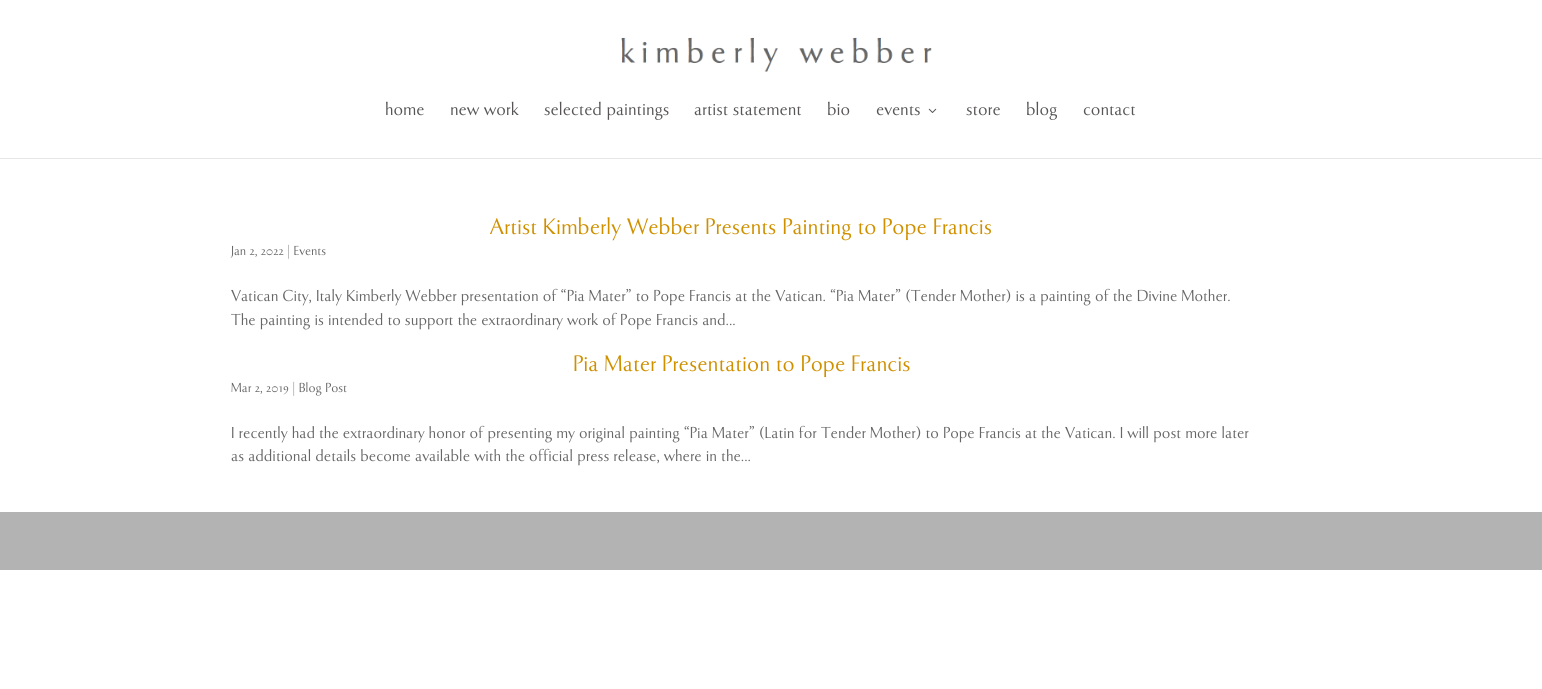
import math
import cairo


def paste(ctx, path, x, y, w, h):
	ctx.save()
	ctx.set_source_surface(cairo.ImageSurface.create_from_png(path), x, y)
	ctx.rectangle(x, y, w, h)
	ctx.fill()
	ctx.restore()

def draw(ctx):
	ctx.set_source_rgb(1, 1, 1)
	ctx.paint()
	ctx.set_source_rgb(0.902, 0.902, 0.902)
	ctx.rectangle(0, 158, 1542, 1)
	ctx.fill()
	paste(ctx, 'media/1.png', 621, 37, 311, 35)
	ctx.select_font_face('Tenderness')
	ctx.set_font_size(19)
	ctx.set_source_rgb(0.337, 0.329, 0.329)
	for x, y, s in [
		(385, 115, 'home'),
		(450, 115, 'new work'),
		(544, 115, 'selected paintings'),
		(694, 115, 'artist statement'),
		(827, 115, 'bio'),
		(876, 115, 'events'),
	]:
		ctx.move_to(x, y)
		ctx.show_text(s)
	paste(ctx, 'media/2.png', 928, 108, 9, 5)
	for x, y, s in [
		(966, 115, 'store'),
		(1026, 115, 'blog'),
		(1083, 115, 'contact'),
	]:
		ctx.move_to(x, y)
		ctx.show_text(s)
	ctx.set_font_size(24)
	ctx.set_source_rgb(0.812, 0.565, 0)
	ctx.move_to(490, 234)
	ctx.show_text('Artist Kimberly Webber Presents Painting to Pope Francis')
	ctx.set_font_size(14)
	ctx.set_source_rgb(0.4, 0.4, 0.4)
	ctx.move_to(231, 255)
	ctx.show_text('Jan 2, 2022 | Events')
	ctx.set_font_size(17)
	ctx.move_to(231, 301)
	ctx.show_text('Vatican City, Italy Kimberly Webber presentation of “Pia Mater” to Pope Francis at the Vatican. “Pia Mater” (Tender Mother) is a painting of the Divine Mother.')
	ctx.move_to(231, 325)
	ctx.show_text('The painting is intended to support the extraordinary work of Pope Francis and...')
	ctx.set_font_size(24)
	ctx.set_source_rgb(0.812, 0.565, 0)
	ctx.move_to(573, 371)
	ctx.show_text('Pia Mater Presentation to Pope Francis')
	ctx.set_font_size(14)
	ctx.set_source_rgb(0.4, 0.4, 0.4)
	ctx.move_to(231, 392)
	ctx.show_text('Mar 2, 2019 | Blog Post')
	ctx.set_font_size(17)
	ctx.move_to(231, 438)
	ctx.show_text('I recently had the extraordinary honor of presenting my original painting “Pia Mater” (Latin for Tender Mother) to Pope Francis at the Vatican. I will post more later')
	ctx.move_to(231, 461)
	ctx.show_text('as additional details become available with the official press release, where in the...')
	ctx.set_source_rgb(0.702, 0.702, 0.702)
	ctx.rectangle(0, 512, 1542, 58)
	ctx.fill()


surface = cairo.ImageSurface(cairo.FORMAT_RGB24, 1542, 689)
ctx = cairo.Context(surface)
options = cairo.FontOptions()
options.set_hint_metrics(cairo.HINT_METRICS_OFF)
options.set_hint_style(cairo.HINT_STYLE_NONE)
ctx.set_font_options(options)
ctx.set_miter_limit(4)
draw(ctx)
surface.write_to_png('image.png')
